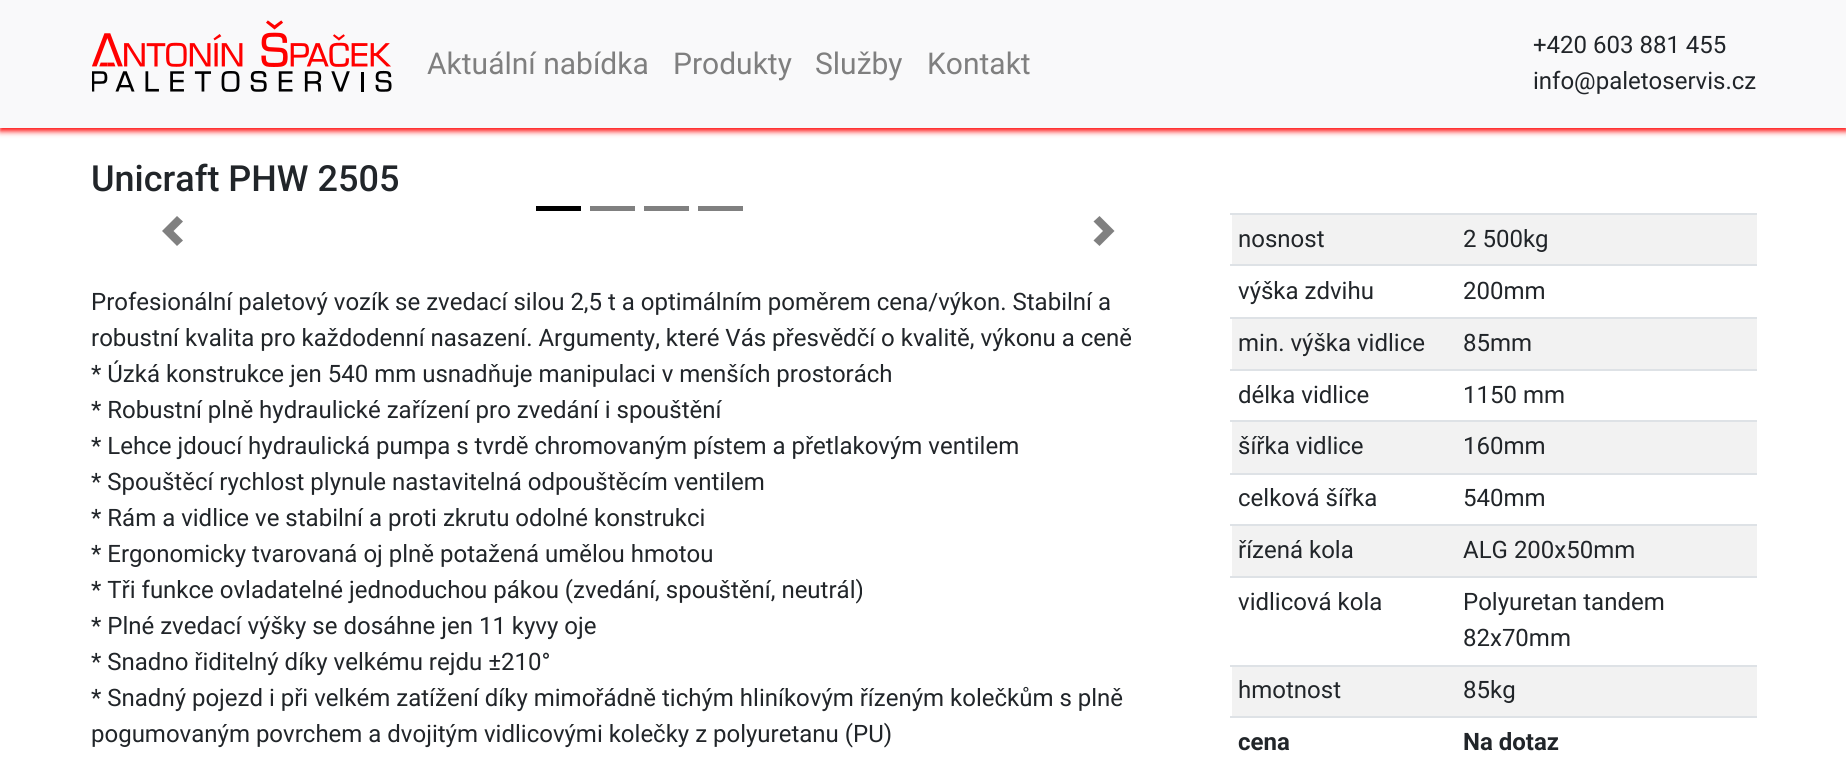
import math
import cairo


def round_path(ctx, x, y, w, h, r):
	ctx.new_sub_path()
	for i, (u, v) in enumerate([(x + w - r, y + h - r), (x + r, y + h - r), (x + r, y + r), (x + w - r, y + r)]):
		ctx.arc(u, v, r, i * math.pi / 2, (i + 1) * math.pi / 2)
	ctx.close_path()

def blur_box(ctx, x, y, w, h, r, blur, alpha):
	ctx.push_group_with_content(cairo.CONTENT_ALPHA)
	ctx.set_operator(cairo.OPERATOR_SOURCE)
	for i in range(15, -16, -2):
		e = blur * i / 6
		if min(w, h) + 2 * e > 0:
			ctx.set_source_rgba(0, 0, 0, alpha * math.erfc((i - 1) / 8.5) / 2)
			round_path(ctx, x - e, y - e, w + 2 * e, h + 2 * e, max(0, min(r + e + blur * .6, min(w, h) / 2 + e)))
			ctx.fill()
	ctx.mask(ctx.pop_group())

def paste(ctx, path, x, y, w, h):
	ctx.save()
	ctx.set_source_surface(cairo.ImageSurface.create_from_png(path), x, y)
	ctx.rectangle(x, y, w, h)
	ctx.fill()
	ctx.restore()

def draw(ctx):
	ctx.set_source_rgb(1, 1, 1)
	ctx.paint()
	ctx.set_source_rgb(1, 0, 0)
	blur_box(ctx, 0, 3, 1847, 128, 0, 3, 1)
	ctx.set_source_rgb(0.973, 0.976, 0.98)
	ctx.rectangle(0, 0, 1846, 128)
	ctx.fill()
	paste(ctx, 'media/1.png', 92, 20, 300, 72)
	ctx.select_font_face('Roboto')
	ctx.set_font_size(30)
	ctx.set_source_rgb(0.498, 0.498, 0.498)
	for x, y, s in [
		(427, 74, 'Aktuální nabídka'),
		(673, 74, 'Produkty'),
		(815, 74, 'Služby'),
		(927, 74, 'Kontakt'),
	]:
		ctx.move_to(x, y)
		ctx.show_text(s)
	ctx.set_font_size(24)
	ctx.set_source_rgb(0.129, 0.145, 0.161)
	ctx.move_to(1533, 53)
	ctx.show_text('+420 603 881 455')
	ctx.move_to(1533, 89)
	ctx.show_text('info@paletoservis.cz')
	ctx.select_font_face('Roboto Medium')
	ctx.set_font_size(36)
	ctx.move_to(91, 191)
	ctx.show_text('Unicraft PHW 2505')
	ctx.set_source_rgb(0, 0, 0)
	ctx.rectangle(536, 206, 45, 5)
	ctx.fill()
	ctx.set_source_rgb(0.502, 0.502, 0.502)
	ctx.rectangle(590, 206, 45, 5)
	ctx.rectangle(644, 206, 45, 5)
	ctx.rectangle(698, 206, 45, 5)
	ctx.fill()
	ctx.new_path()
	ctx.move_to(177, 216)
	ctx.line_to(162, 231)
	ctx.line_to(177, 246)
	ctx.line_to(183, 240.5)
	ctx.line_to(173.5, 231)
	ctx.line_to(183, 221.5)
	ctx.close_path()
	ctx.fill()
	ctx.new_path()
	ctx.move_to(1099.5, 216)
	ctx.line_to(1093.5, 221.5)
	ctx.line_to(1103, 231)
	ctx.line_to(1093.5, 240.5)
	ctx.line_to(1099.5, 246)
	ctx.line_to(1114.5, 231)
	ctx.close_path()
	ctx.fill()
	ctx.select_font_face('Roboto')
	ctx.set_font_size(24)
	ctx.set_source_rgb(0.129, 0.145, 0.161)
	for x, y, s in [
		(91, 310, 'Profesionální paletový vozík se zvedací silou 2,5 t a optimálním poměrem cena/výkon. Stabilní a'),
		(91, 346, 'robustní kvalita pro každodenní nasazení. Argumenty, které Vás přesvědčí o kvalitě, výkonu a ceně'),
		(91, 382, '* Úzká konstrukce jen 540 mm usnadňuje manipulaci v menších prostorách'),
		(91, 418, '* Robustní plně hydraulické zařízení pro zvedání i spouštění'),
		(91, 454, '* Lehce jdoucí hydraulická pumpa s tvrdě chromovaným pístem a přetlakovým ventilem'),
		(91, 490, '* Spouštěcí rychlost plynule nastavitelná odpouštěcím ventilem'),
		(91, 526, '* Rám a vidlice ve stabilní a proti zkrutu odolné konstrukci'),
		(91, 562, '* Ergonomicky tvarovaná oj plně potažená umělou hmotou'),
		(91, 598, '* Tři funkce ovladatelné jednoduchou pákou (zvedání, spouštění, neutrál)'),
		(91, 634, '* Plné zvedací výšky se dosáhne jen 11 kyvy oje'),
		(91, 670, '* Snadno řiditelný díky velkému rejdu ±210°'),
		(91, 706, '* Snadný pojezd i při velkém zatížení díky mimořádně tichým hliníkovým řízeným kolečkům s plně'),
		(91, 742, 'pogumovaným povrchem a dvojitým vidlicovými kolečky z polyuretanu (PU)'),
	]:
		ctx.move_to(x, y)
		ctx.show_text(s)
	ctx.set_source_rgb(0.949, 0.949, 0.949)
	ctx.rectangle(1232, 215, 525, 49)
	ctx.fill()
	ctx.set_source_rgb(0.129, 0.145, 0.161)
	ctx.move_to(1238, 247)
	ctx.show_text('nosnost')
	ctx.set_source_rgb(0.871, 0.886, 0.902)
	ctx.rectangle(1230, 213, 527, 2)
	ctx.fill()
	ctx.set_source_rgb(0.129, 0.145, 0.161)
	ctx.move_to(1463, 247)
	ctx.show_text('2 500kg')
	ctx.move_to(1238, 299)
	ctx.show_text('výška zdvihu')
	ctx.set_source_rgb(0.871, 0.886, 0.902)
	ctx.rectangle(1230, 264, 527, 2)
	ctx.fill()
	ctx.set_source_rgb(0.129, 0.145, 0.161)
	ctx.move_to(1463, 299)
	ctx.show_text('200mm')
	ctx.set_source_rgb(0.949, 0.949, 0.949)
	ctx.rectangle(1232, 319, 525, 50)
	ctx.fill()
	ctx.set_source_rgb(0.129, 0.145, 0.161)
	ctx.move_to(1238, 351)
	ctx.show_text('min. výška vidlice')
	ctx.set_source_rgb(0.871, 0.886, 0.902)
	ctx.rectangle(1230, 317, 527, 2)
	ctx.fill()
	ctx.set_source_rgb(0.129, 0.145, 0.161)
	ctx.move_to(1463, 351)
	ctx.show_text('85mm')
	ctx.move_to(1238, 403)
	ctx.show_text('délka vidlice')
	ctx.set_source_rgb(0.871, 0.886, 0.902)
	ctx.rectangle(1230, 369, 527, 2)
	ctx.fill()
	ctx.set_source_rgb(0.129, 0.145, 0.161)
	ctx.move_to(1463, 403)
	ctx.show_text('1150 mm')
	ctx.set_source_rgb(0.949, 0.949, 0.949)
	ctx.rectangle(1232, 422, 525, 51)
	ctx.fill()
	ctx.set_source_rgb(0.129, 0.145, 0.161)
	ctx.move_to(1238, 454)
	ctx.show_text('šířka vidlice')
	ctx.set_source_rgb(0.871, 0.886, 0.902)
	ctx.rectangle(1230, 420, 527, 2)
	ctx.fill()
	ctx.set_source_rgb(0.129, 0.145, 0.161)
	ctx.move_to(1463, 454)
	ctx.show_text('160mm')
	ctx.move_to(1238, 506)
	ctx.show_text('celková šířka')
	ctx.set_source_rgb(0.871, 0.886, 0.902)
	ctx.rectangle(1230, 473, 527, 2)
	ctx.fill()
	ctx.set_source_rgb(0.129, 0.145, 0.161)
	ctx.move_to(1463, 506)
	ctx.show_text('540mm')
	ctx.set_source_rgb(0.949, 0.949, 0.949)
	ctx.rectangle(1232, 526, 525, 50)
	ctx.fill()
	ctx.set_source_rgb(0.129, 0.145, 0.161)
	ctx.move_to(1238, 558)
	ctx.show_text('řízená kola')
	ctx.set_source_rgb(0.871, 0.886, 0.902)
	ctx.rectangle(1230, 524, 527, 2)
	ctx.fill()
	ctx.set_source_rgb(0.129, 0.145, 0.161)
	ctx.move_to(1463, 558)
	ctx.show_text('ALG 200x50mm')
	ctx.move_to(1238, 610)
	ctx.show_text('vidlicová kola')
	ctx.set_source_rgb(0.871, 0.886, 0.902)
	ctx.rectangle(1230, 576, 527, 2)
	ctx.fill()
	ctx.set_source_rgb(0.129, 0.145, 0.161)
	ctx.move_to(1463, 610)
	ctx.show_text('Polyuretan tandem')
	ctx.move_to(1463, 646)
	ctx.show_text('82x70mm')
	ctx.set_source_rgb(0.949, 0.949, 0.949)
	ctx.rectangle(1232, 667, 525, 49)
	ctx.fill()
	ctx.set_source_rgb(0.129, 0.145, 0.161)
	ctx.move_to(1238, 698)
	ctx.show_text('hmotnost')
	ctx.set_source_rgb(0.871, 0.886, 0.902)
	ctx.rectangle(1230, 665, 527, 2)
	ctx.fill()
	ctx.set_source_rgb(0.129, 0.145, 0.161)
	ctx.move_to(1463, 698)
	ctx.show_text('85kg')
	ctx.select_font_face('Roboto', cairo.FONT_SLANT_NORMAL, cairo.FONT_WEIGHT_BOLD)
	ctx.move_to(1238, 750)
	ctx.show_text('cena')
	ctx.set_source_rgb(0.871, 0.886, 0.902)
	ctx.rectangle(1230, 716, 527, 2)
	ctx.fill()
	ctx.set_source_rgb(0.129, 0.145, 0.161)
	ctx.move_to(1463, 750)
	ctx.show_text('Na dotaz')


surface = cairo.ImageSurface(cairo.FORMAT_RGB24, 1846, 760)
ctx = cairo.Context(surface)
options = cairo.FontOptions()
options.set_hint_metrics(cairo.HINT_METRICS_OFF)
options.set_hint_style(cairo.HINT_STYLE_NONE)
ctx.set_font_options(options)
ctx.set_miter_limit(4)
draw(ctx)
surface.write_to_png('image.png')
